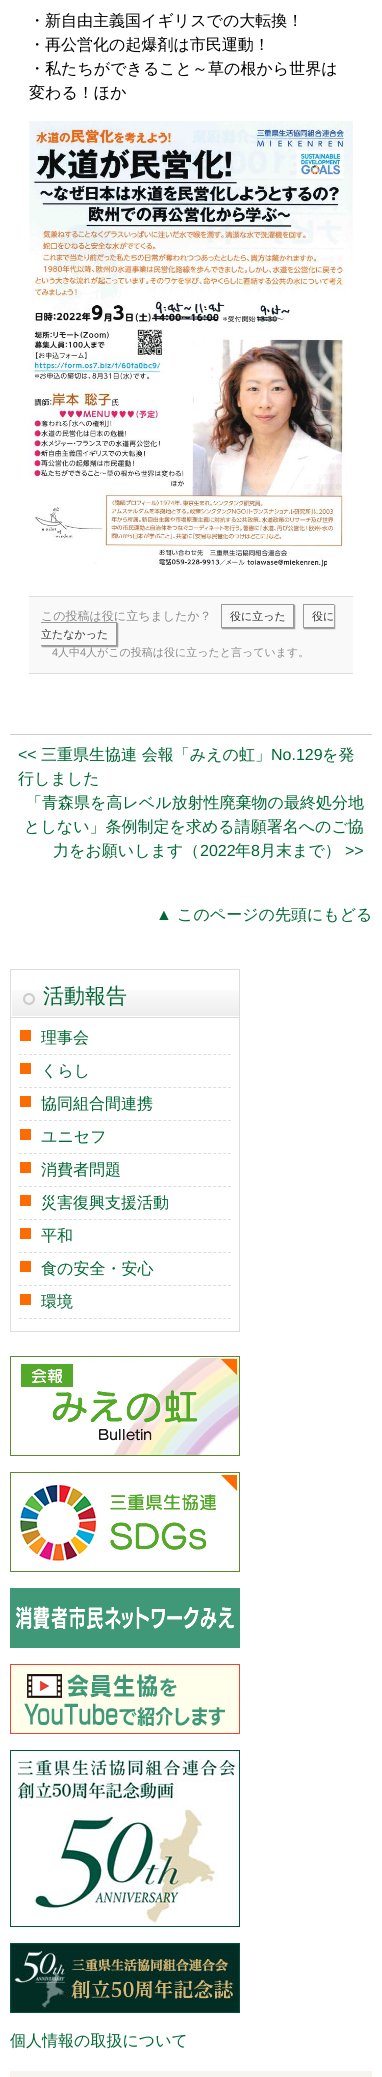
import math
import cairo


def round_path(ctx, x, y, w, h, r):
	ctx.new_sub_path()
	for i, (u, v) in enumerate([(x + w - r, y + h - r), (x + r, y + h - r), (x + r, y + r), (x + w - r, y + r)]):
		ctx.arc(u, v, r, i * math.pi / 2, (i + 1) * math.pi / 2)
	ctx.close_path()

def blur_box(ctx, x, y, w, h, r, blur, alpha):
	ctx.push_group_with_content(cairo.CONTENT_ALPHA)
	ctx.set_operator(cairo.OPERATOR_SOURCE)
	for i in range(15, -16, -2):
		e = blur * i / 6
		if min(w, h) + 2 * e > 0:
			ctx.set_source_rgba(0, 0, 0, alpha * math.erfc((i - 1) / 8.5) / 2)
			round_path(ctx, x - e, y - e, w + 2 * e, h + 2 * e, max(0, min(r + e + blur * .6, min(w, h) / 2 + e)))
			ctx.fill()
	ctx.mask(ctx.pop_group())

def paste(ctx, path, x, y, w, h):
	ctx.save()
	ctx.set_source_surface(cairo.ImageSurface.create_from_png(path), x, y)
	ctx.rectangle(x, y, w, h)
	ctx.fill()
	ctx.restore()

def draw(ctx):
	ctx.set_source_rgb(1, 1, 1)
	ctx.paint()
	ctx.select_font_face('WenQuanYi Zen Hei Medium')
	ctx.set_font_size(16)
	ctx.set_source_rgb(0, 0, 0)
	for x, y, s in [
		(29, 26, '・新自由主義国イギリスでの大転換！'),
		(29, 50, '・再公営化の起爆剤は市民運動！'),
		(29, 74, '・私たちができること～草の根から世界は'),
		(29, 98, '変わる！ほか'),
	]:
		ctx.move_to(x, y)
		ctx.show_text(s)
	paste(ctx, 'media/1.png', 29, 121, 324, 448)
	ctx.set_source_rgb(0.976, 0.976, 0.976)
	ctx.rectangle(29, 597, 324, 76)
	ctx.fill()
	ctx.set_source_rgb(0.867, 0.867, 0.867)
	ctx.rectangle(29, 596, 324, 1)
	ctx.rectangle(29, 673, 324, 1)
	ctx.fill()
	ctx.set_font_size(12)
	ctx.set_source_rgb(0.533, 0.533, 0.533)
	ctx.move_to(41, 620)
	ctx.show_text('この投稿は役に立ちましたか？')
	ctx.save()
	ctx.set_fill_rule(cairo.FILL_RULE_EVEN_ODD)
	ctx.new_path()
	ctx.move_to(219, 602)
	ctx.line_to(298, 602)
	ctx.line_to(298, 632)
	ctx.line_to(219, 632)
	ctx.close_path()
	ctx.move_to(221, 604)
	ctx.line_to(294, 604)
	ctx.line_to(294, 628)
	ctx.line_to(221, 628)
	ctx.close_path()
	ctx.clip()
	ctx.set_source_rgb(0, 0, 0)
	blur_box(ctx, 222, 605, 73, 24, 0, 0.5, 0.4)
	ctx.restore()
	ctx.rectangle(221.5, 604.5, 72, 23)
	ctx.set_source_rgb(0.6, 0.6, 0.6)
	ctx.set_line_width(1)
	ctx.stroke()
	ctx.set_font_size(11)
	ctx.set_source_rgb(0.2, 0.2, 0.2)
	ctx.move_to(230, 620)
	ctx.show_text('役に立った')
	ctx.save()
	ctx.set_fill_rule(cairo.FILL_RULE_EVEN_ODD)
	ctx.new_path()
	ctx.move_to(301, 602)
	ctx.line_to(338, 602)
	ctx.line_to(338, 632)
	ctx.line_to(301, 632)
	ctx.close_path()
	ctx.move_to(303, 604)
	ctx.line_to(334, 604)
	ctx.line_to(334, 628)
	ctx.line_to(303, 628)
	ctx.close_path()
	ctx.clip()
	ctx.set_source_rgb(0, 0, 0)
	blur_box(ctx, 304, 605, 31, 24, 0, 0.5, 0.4)
	ctx.restore()
	ctx.move_to(312, 620)
	ctx.show_text('役に')
	ctx.set_source_rgb(0.6, 0.6, 0.6)
	ctx.rectangle(303, 604, 31, 1)
	ctx.rectangle(303, 627, 31, 1)
	ctx.rectangle(303, 604, 1, 24)
	ctx.fill()
	ctx.save()
	ctx.set_fill_rule(cairo.FILL_RULE_EVEN_ODD)
	ctx.new_path()
	ctx.move_to(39, 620)
	ctx.line_to(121, 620)
	ctx.line_to(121, 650)
	ctx.line_to(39, 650)
	ctx.close_path()
	ctx.move_to(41, 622)
	ctx.line_to(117, 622)
	ctx.line_to(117, 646)
	ctx.line_to(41, 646)
	ctx.close_path()
	ctx.clip()
	ctx.set_source_rgb(0, 0, 0)
	blur_box(ctx, 42, 623, 76, 24, 0, 0.5, 0.4)
	ctx.restore()
	ctx.set_source_rgb(0.2, 0.2, 0.2)
	ctx.move_to(41, 638)
	ctx.show_text('立たなかった')
	ctx.set_source_rgb(0.6, 0.6, 0.6)
	ctx.rectangle(41, 622, 76, 1)
	ctx.rectangle(116, 622, 1, 24)
	ctx.rectangle(41, 645, 76, 1)
	ctx.fill()
	ctx.select_font_face('Liberation Sans')
	ctx.set_source_rgb(0.533, 0.533, 0.533)
	ctx.move_to(52, 656)
	ctx.show_text('4')
	ctx.select_font_face('WenQuanYi Zen Hei Medium')
	ctx.move_to(58, 656)
	ctx.show_text('人中')
	ctx.select_font_face('Liberation Sans')
	ctx.move_to(80, 656)
	ctx.show_text('4')
	ctx.select_font_face('WenQuanYi Zen Hei Medium')
	ctx.move_to(86, 656)
	ctx.show_text('人がこの投稿は役に立ったと言っています。')
	ctx.set_source_rgb(0.8, 0.8, 0.8)
	ctx.rectangle(10, 734, 362, 1)
	ctx.fill()
	ctx.select_font_face('Liberation Sans')
	ctx.set_font_size(16)
	ctx.set_source_rgb(0, 0.4, 0.2)
	ctx.move_to(18, 760)
	ctx.show_text('<<')
	ctx.select_font_face('WenQuanYi Zen Hei Medium')
	ctx.move_to(41, 760)
	ctx.show_text('三重県生協連 会報「みえの虹」')
	ctx.select_font_face('Liberation Sans')
	ctx.move_to(271, 760)
	ctx.show_text('No.129')
	ctx.select_font_face('WenQuanYi Zen Hei Medium')
	for x, y, s in [
		(322, 760, 'を発'),
		(18, 784, '行しました'),
		(26, 808, '「青森県を高レベル放射性廃棄物の最終処分地'),
		(24, 832, 'としない」条例制定を求める請願署名へのご協'),
		(53, 856, '力をお願いします（'),
	]:
		ctx.move_to(x, y)
		ctx.show_text(s)
	ctx.select_font_face('Liberation Sans')
	ctx.move_to(200, 856)
	ctx.show_text('2022')
	ctx.select_font_face('WenQuanYi Zen Hei Medium')
	ctx.move_to(235, 856)
	ctx.show_text('年')
	ctx.select_font_face('Liberation Sans')
	ctx.move_to(251, 856)
	ctx.show_text('8')
	ctx.select_font_face('WenQuanYi Zen Hei Medium')
	ctx.move_to(260, 856)
	ctx.show_text('月末まで）')
	ctx.select_font_face('Liberation Sans')
	ctx.move_to(345, 856)
	ctx.show_text('>>')
	ctx.move_to(156, 920)
	ctx.show_text('▲')
	ctx.select_font_face('WenQuanYi Zen Hei Medium')
	ctx.move_to(177, 920)
	ctx.show_text('このページの先頭にもどる')
	paste(ctx, 'media/2.png', 12, 990, 227, 26)
	ctx.rectangle(10.5, 969.5, 229, 48)
	ctx.set_source_rgb(0.867, 0.867, 0.867)
	ctx.stroke()
	ctx.set_font_size(21)
	ctx.set_source_rgb(0, 0.4, 0.2)
	ctx.move_to(43, 1003)
	ctx.show_text('活動報告')
	ctx.set_source_rgb(0.867, 0.867, 0.867)
	ctx.rectangle(239, 1018, 1, 314)
	ctx.rectangle(10, 1331, 230, 1)
	ctx.rectangle(10, 1018, 1, 314)
	ctx.fill()
	ctx.set_source_rgb(0.992, 0.424, 0.008)
	ctx.rectangle(20, 1030, 11, 11)
	ctx.fill()
	ctx.new_path()
	ctx.move_to(19, 1054.5)
	ctx.line_to(231, 1054.5)
	ctx.set_source_rgb(0.867, 0.867, 0.867)
	ctx.set_dash([3, 1.98])
	ctx.stroke()
	ctx.set_font_size(16)
	ctx.set_source_rgb(0, 0.4, 0.2)
	ctx.move_to(41, 1043)
	ctx.show_text('理事会')
	ctx.set_source_rgb(0.992, 0.424, 0.008)
	ctx.rectangle(20, 1063, 11, 11)
	ctx.fill()
	ctx.new_path()
	ctx.move_to(19, 1087.5)
	ctx.line_to(231, 1087.5)
	ctx.set_source_rgb(0.867, 0.867, 0.867)
	ctx.stroke()
	ctx.set_source_rgb(0, 0.4, 0.2)
	ctx.move_to(41, 1076)
	ctx.show_text('くらし')
	ctx.set_source_rgb(0.992, 0.424, 0.008)
	ctx.rectangle(20, 1096, 11, 11)
	ctx.fill()
	ctx.new_path()
	ctx.move_to(19, 1120.5)
	ctx.line_to(231, 1120.5)
	ctx.set_source_rgb(0.867, 0.867, 0.867)
	ctx.stroke()
	ctx.set_source_rgb(0, 0.4, 0.2)
	ctx.move_to(41, 1109)
	ctx.show_text('協同組合間連携')
	ctx.set_source_rgb(0.992, 0.424, 0.008)
	ctx.rectangle(20, 1129, 11, 11)
	ctx.fill()
	ctx.new_path()
	ctx.move_to(19, 1153.5)
	ctx.line_to(231, 1153.5)
	ctx.set_source_rgb(0.867, 0.867, 0.867)
	ctx.stroke()
	ctx.set_source_rgb(0, 0.4, 0.2)
	ctx.move_to(41, 1142)
	ctx.show_text('ユニセフ')
	ctx.set_source_rgb(0.992, 0.424, 0.008)
	ctx.rectangle(20, 1162, 11, 11)
	ctx.fill()
	ctx.new_path()
	ctx.move_to(19, 1186.5)
	ctx.line_to(231, 1186.5)
	ctx.set_source_rgb(0.867, 0.867, 0.867)
	ctx.stroke()
	ctx.set_source_rgb(0, 0.4, 0.2)
	ctx.move_to(41, 1175)
	ctx.show_text('消費者問題')
	ctx.set_source_rgb(0.992, 0.424, 0.008)
	ctx.rectangle(20, 1195, 11, 11)
	ctx.fill()
	ctx.new_path()
	ctx.move_to(19, 1219.5)
	ctx.line_to(231, 1219.5)
	ctx.set_source_rgb(0.867, 0.867, 0.867)
	ctx.stroke()
	ctx.set_source_rgb(0, 0.4, 0.2)
	ctx.move_to(41, 1208)
	ctx.show_text('災害復興支援活動')
	ctx.set_source_rgb(0.992, 0.424, 0.008)
	ctx.rectangle(20, 1228, 11, 11)
	ctx.fill()
	ctx.new_path()
	ctx.move_to(19, 1252.5)
	ctx.line_to(231, 1252.5)
	ctx.set_source_rgb(0.867, 0.867, 0.867)
	ctx.stroke()
	ctx.set_source_rgb(0, 0.4, 0.2)
	ctx.move_to(41, 1241)
	ctx.show_text('平和')
	ctx.set_source_rgb(0.992, 0.424, 0.008)
	ctx.rectangle(20, 1261, 11, 11)
	ctx.fill()
	ctx.new_path()
	ctx.move_to(19, 1285.5)
	ctx.line_to(231, 1285.5)
	ctx.set_source_rgb(0.867, 0.867, 0.867)
	ctx.stroke()
	ctx.set_source_rgb(0, 0.4, 0.2)
	ctx.move_to(41, 1274)
	ctx.show_text('食の安全・安心')
	ctx.set_source_rgb(0.992, 0.424, 0.008)
	ctx.rectangle(20, 1294, 11, 11)
	ctx.fill()
	ctx.new_path()
	ctx.move_to(19, 1318.5)
	ctx.line_to(231, 1318.5)
	ctx.set_source_rgb(0.867, 0.867, 0.867)
	ctx.stroke()
	ctx.set_source_rgb(0, 0.4, 0.2)
	ctx.move_to(41, 1307)
	ctx.show_text('環境')
	paste(ctx, 'media/3.png', 10, 1356, 230, 100)
	paste(ctx, 'media/4.png', 10, 1472, 230, 100)
	paste(ctx, 'media/5.png', 10, 1588, 230, 60)
	paste(ctx, 'media/6.png', 10, 1664, 230, 70)
	paste(ctx, 'media/7.png', 10, 1750, 230, 177)
	paste(ctx, 'media/8.png', 10, 1943, 230, 70)
	ctx.move_to(10, 2046)
	ctx.show_text('個人情報の取扱について')
	ctx.set_source_rgb(0.969, 0.957, 0.941)
	ctx.rectangle(10, 2071, 362, 6)
	ctx.fill()


surface = cairo.ImageSurface(cairo.FORMAT_RGB24, 382, 2077)
ctx = cairo.Context(surface)
options = cairo.FontOptions()
options.set_hint_metrics(cairo.HINT_METRICS_OFF)
options.set_hint_style(cairo.HINT_STYLE_NONE)
ctx.set_font_options(options)
ctx.set_miter_limit(4)
draw(ctx)
surface.write_to_png('image.png')
